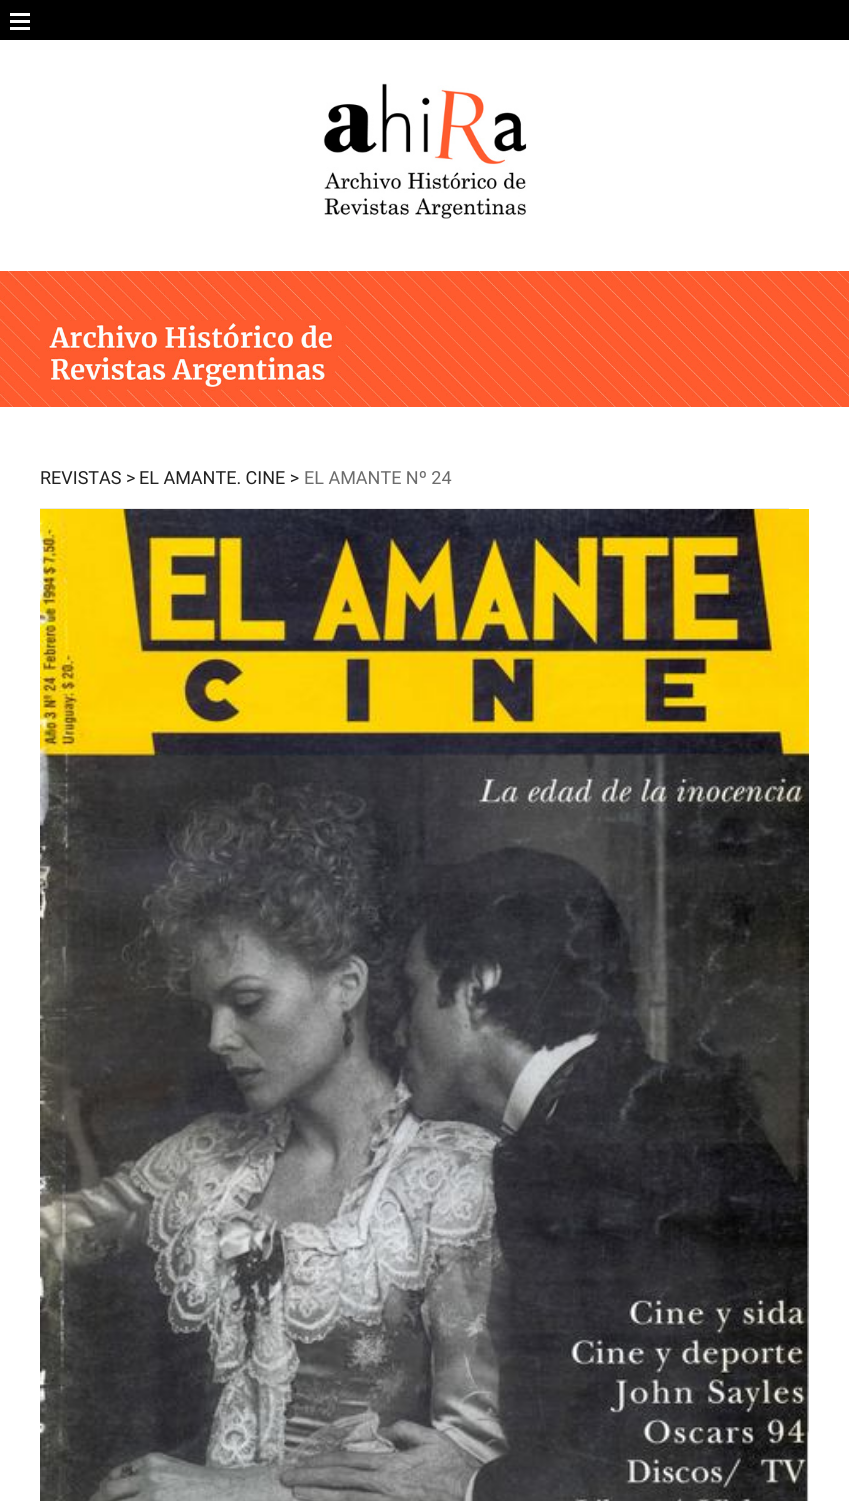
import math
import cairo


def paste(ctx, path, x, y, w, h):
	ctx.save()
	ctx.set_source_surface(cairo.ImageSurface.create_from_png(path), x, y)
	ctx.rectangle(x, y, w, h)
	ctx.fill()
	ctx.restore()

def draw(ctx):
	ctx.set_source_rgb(1, 1, 1)
	ctx.paint()
	ctx.set_source_rgb(0, 0, 0)
	ctx.rectangle(0, 0, 849, 40)
	ctx.fill()
	ctx.set_source_rgb(1, 1, 1)
	ctx.rectangle(10, 13, 20, 3)
	ctx.rectangle(10, 20, 20, 3)
	ctx.rectangle(10, 27, 20, 3)
	ctx.fill()
	paste(ctx, 'media/1.png', 323, 83, 204, 136)
	paste(ctx, 'media/2.png', 0, 271, 849, 136)
	ctx.set_source_rgb(0.914, 0.914, 0.914)
	ctx.rectangle(40, 508, 749, 1)
	ctx.fill()
	ctx.select_font_face('Roboto')
	ctx.set_font_size(18)
	ctx.set_source_rgb(0.133, 0.133, 0.133)
	ctx.move_to(40, 484)
	ctx.show_text('REVISTAS >')
	ctx.move_to(139, 484)
	ctx.show_text('EL AMANTE. CINE >')
	ctx.set_source_rgb(0.424, 0.424, 0.424)
	ctx.move_to(304, 484)
	ctx.show_text('EL AMANTE Nº 24')
	paste(ctx, 'media/3.png', 40, 509, 769, 992)


surface = cairo.ImageSurface(cairo.FORMAT_RGB24, 849, 1501)
ctx = cairo.Context(surface)
options = cairo.FontOptions()
options.set_hint_metrics(cairo.HINT_METRICS_OFF)
options.set_hint_style(cairo.HINT_STYLE_NONE)
ctx.set_font_options(options)
ctx.set_miter_limit(4)
draw(ctx)
surface.write_to_png('image.png')
